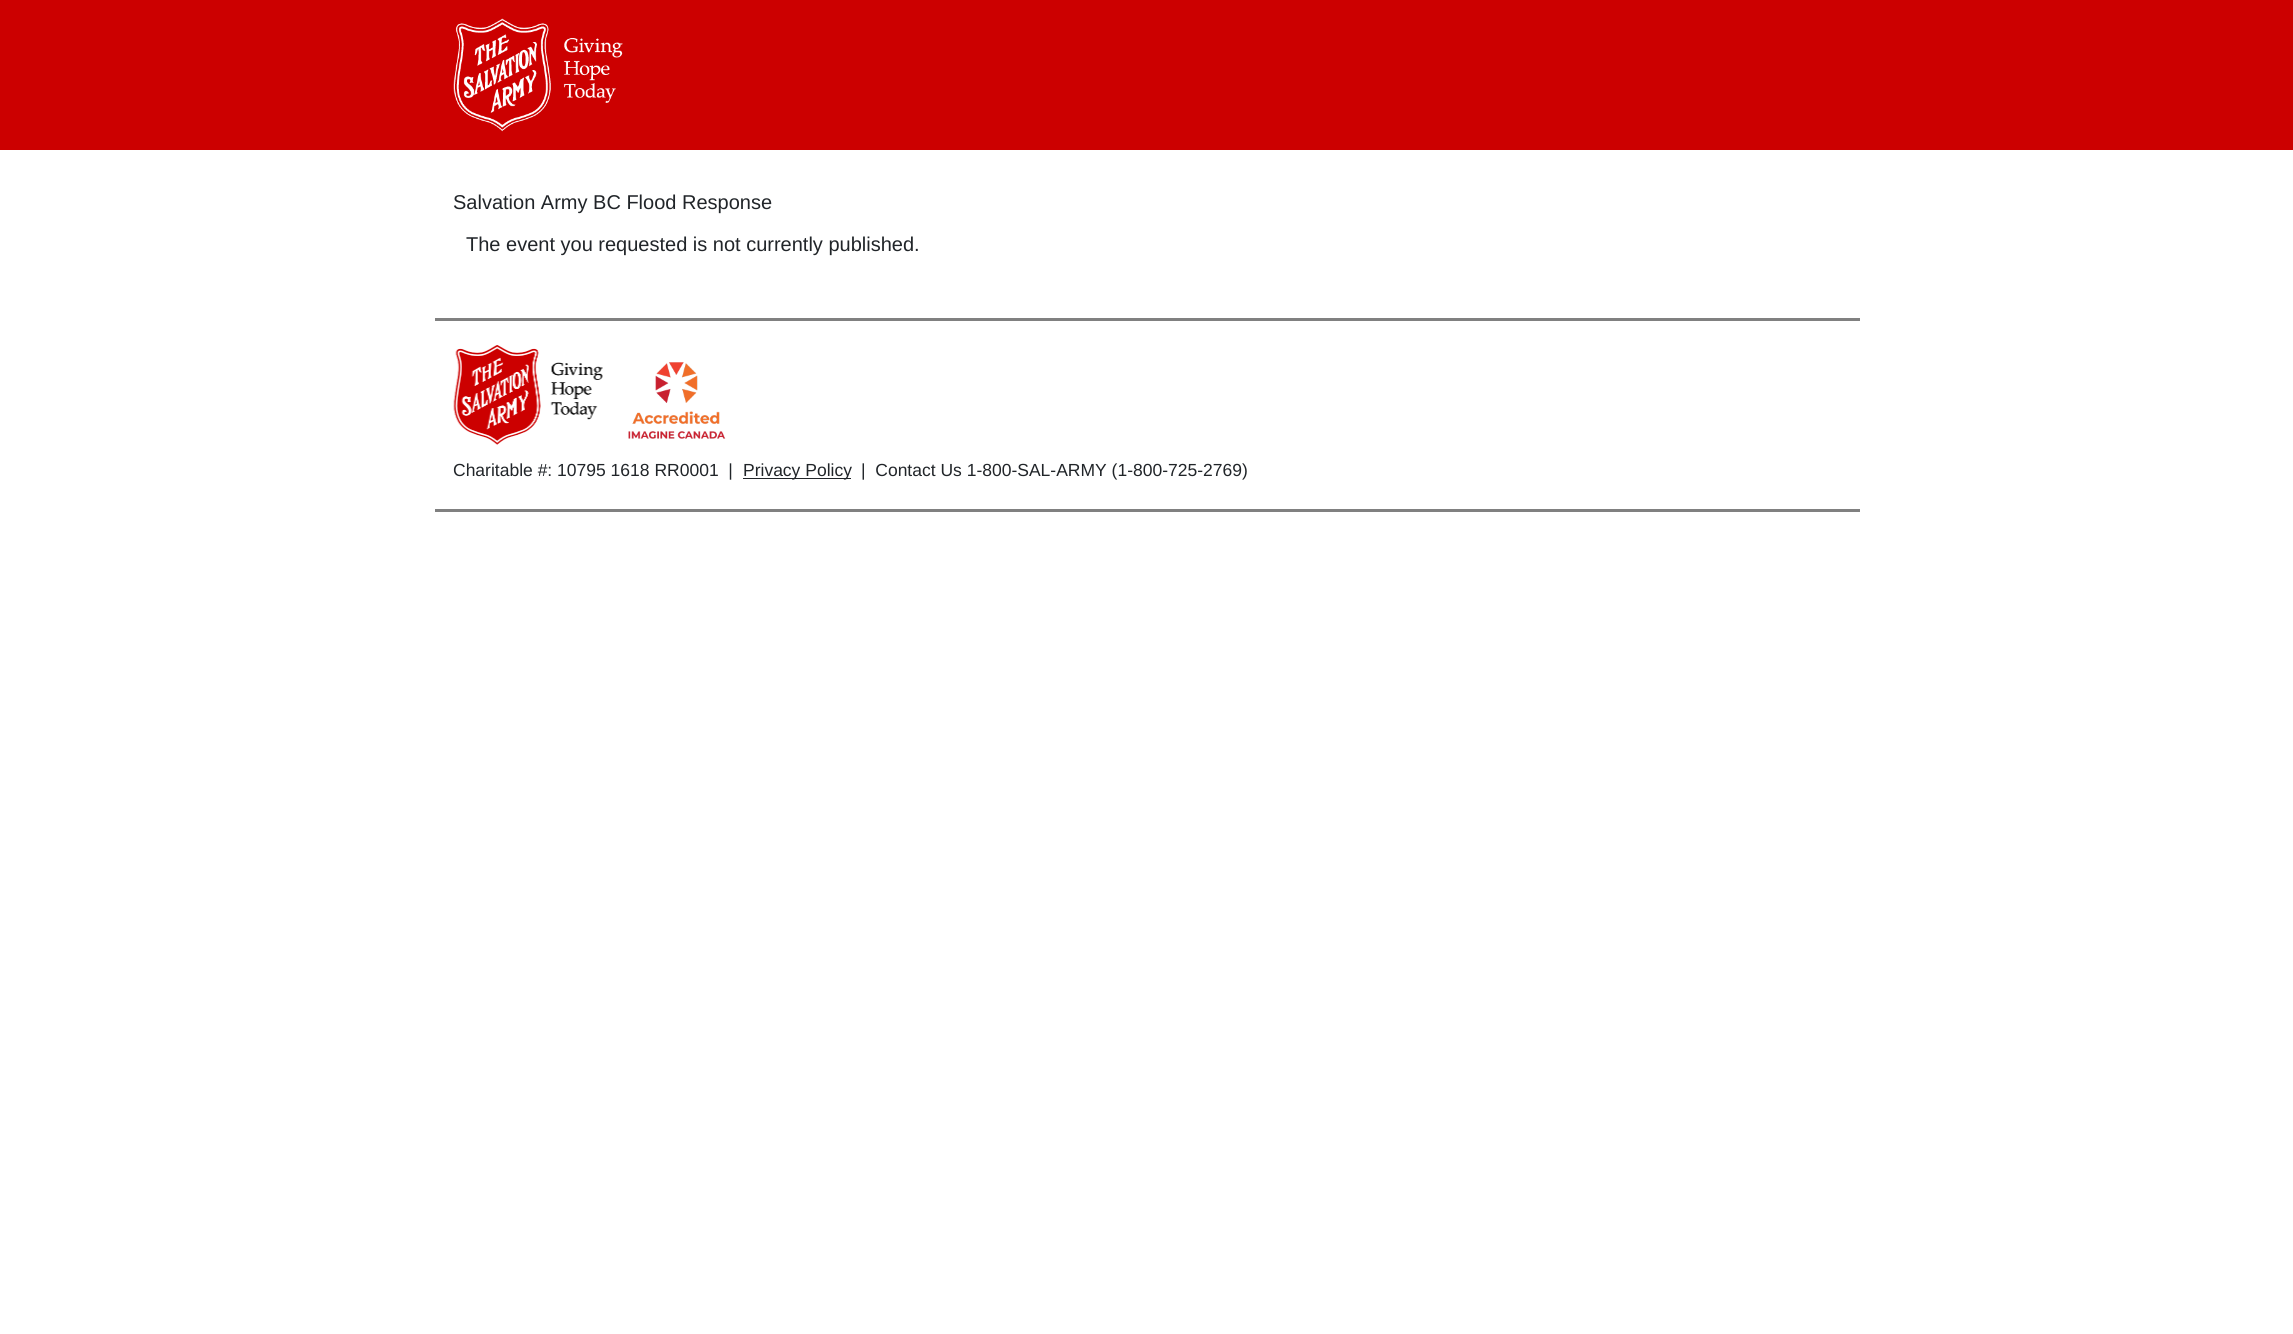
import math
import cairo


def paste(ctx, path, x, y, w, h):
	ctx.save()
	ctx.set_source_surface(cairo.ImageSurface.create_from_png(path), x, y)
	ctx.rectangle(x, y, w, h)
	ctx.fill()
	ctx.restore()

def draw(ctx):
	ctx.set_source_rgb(1, 1, 1)
	ctx.paint()
	ctx.set_source_rgb(0.8, 0, 0)
	ctx.rectangle(0, 0, 2293, 150)
	ctx.fill()
	paste(ctx, 'media/1.png', 453, 18, 170, 114)
	ctx.select_font_face('Liberation Sans')
	ctx.set_font_size(20)
	ctx.set_source_rgb(0.129, 0.145, 0.161)
	ctx.move_to(453, 209)
	ctx.show_text('Salvation Army BC Flood Response')
	ctx.move_to(466, 251)
	ctx.show_text('The event you requested is not currently published.')
	ctx.set_source_rgb(0.502, 0.502, 0.502)
	ctx.rectangle(435, 318, 1425, 3)
	ctx.fill()
	ctx.rectangle(435, 509, 1425, 3)
	ctx.fill()
	paste(ctx, 'media/2.png', 453, 345, 150, 100)
	paste(ctx, 'media/3.png', 628, 362, 98, 77)
	ctx.set_font_size(17.5)
	ctx.set_source_rgb(0.129, 0.145, 0.161)
	ctx.move_to(453, 476)
	ctx.show_text('Charitable #: 10795 1618 RR0001  |')
	ctx.rectangle(743, 478, 108, 1)
	ctx.fill()
	ctx.move_to(743, 476)
	ctx.show_text('Privacy Policy')
	ctx.move_to(861, 476)
	ctx.show_text('|  Contact Us 1-800-SAL-ARMY (1-800-725-2769)')


surface = cairo.ImageSurface(cairo.FORMAT_RGB24, 2293, 1334)
ctx = cairo.Context(surface)
options = cairo.FontOptions()
options.set_hint_metrics(cairo.HINT_METRICS_OFF)
options.set_hint_style(cairo.HINT_STYLE_NONE)
ctx.set_font_options(options)
ctx.set_miter_limit(4)
draw(ctx)
surface.write_to_png('image.png')
